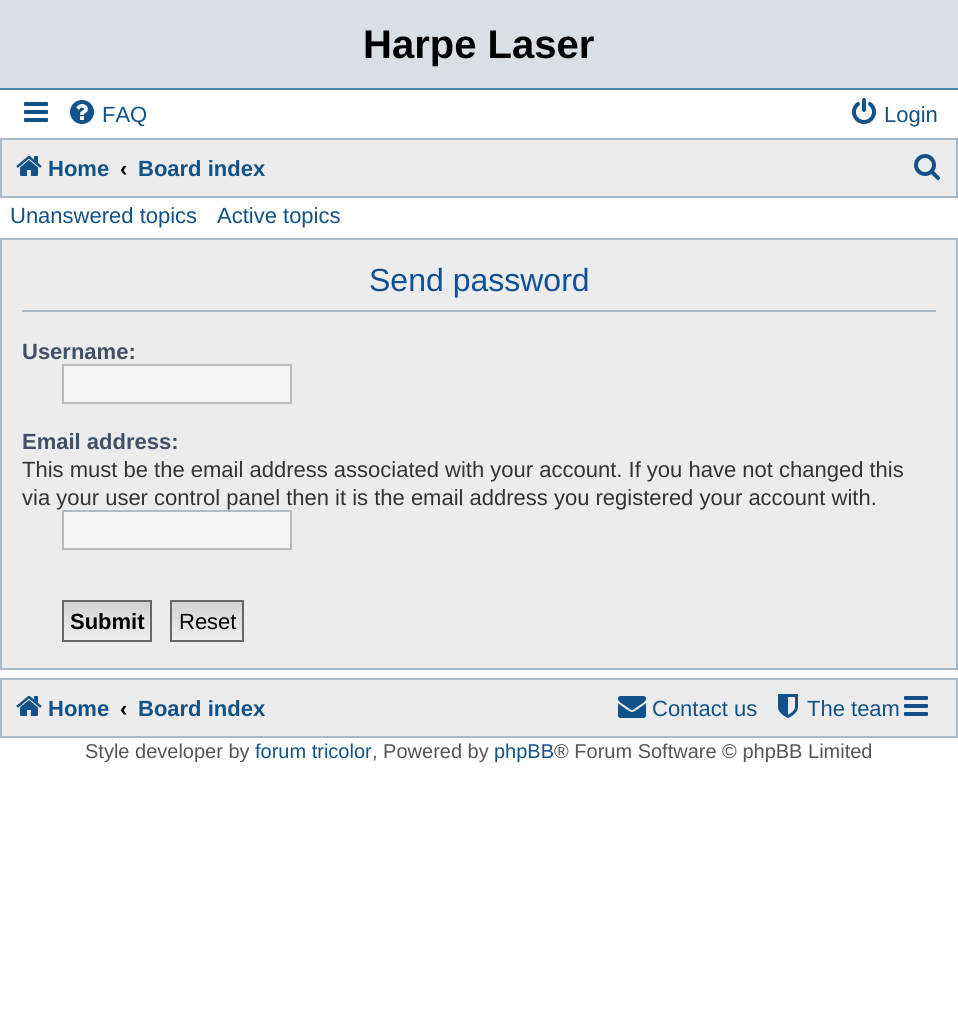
import math
import cairo


def paste(ctx, path, x, y, w, h):
	ctx.save()
	ctx.set_source_surface(cairo.ImageSurface.create_from_png(path), x, y)
	ctx.rectangle(x, y, w, h)
	ctx.fill()
	ctx.restore()

def draw(ctx):
	ctx.set_source_rgb(1, 1, 1)
	ctx.paint()
	ctx.set_source_rgb(0.851, 0.875, 0.894)
	ctx.rectangle(0, 0, 958, 88)
	ctx.fill()
	ctx.set_source_rgb(0.278, 0.529, 0.655)
	ctx.rectangle(0, 88, 958, 2)
	ctx.fill()
	ctx.select_font_face('Liberation Sans', cairo.FONT_SLANT_NORMAL, cairo.FONT_WEIGHT_BOLD)
	ctx.set_font_size(40)
	ctx.set_source_rgb(0, 0, 0)
	ctx.move_to(363, 58)
	ctx.show_text('Harpe Laser')
	paste(ctx, 'media/1.png', 24, 102, 24, 20)
	paste(ctx, 'media/2.png', 70, 100, 24, 24)
	ctx.select_font_face('Liberation Sans')
	ctx.set_font_size(22)
	ctx.set_source_rgb(0.063, 0.322, 0.537)
	ctx.move_to(102, 122)
	ctx.show_text('FAQ')
	paste(ctx, 'media/3.png', 852, 98, 24, 26)
	ctx.move_to(884, 122)
	ctx.show_text('Login')
	ctx.set_source_rgb(0.925, 0.925, 0.925)
	ctx.rectangle(1, 139, 956, 58)
	ctx.fill_preserve()
	ctx.set_source_rgb(0.663, 0.722, 0.761)
	ctx.stroke()
	paste(ctx, 'media/4.png', 16, 156, 26, 20)
	ctx.select_font_face('Liberation Sans', cairo.FONT_SLANT_NORMAL, cairo.FONT_WEIGHT_BOLD)
	ctx.set_source_rgb(0.063, 0.322, 0.537)
	ctx.move_to(48, 176)
	ctx.show_text('Home')
	ctx.set_source_rgb(0, 0, 0)
	ctx.move_to(120, 176)
	ctx.show_text('‹')
	ctx.set_source_rgb(0.063, 0.322, 0.537)
	ctx.move_to(138, 176)
	ctx.show_text('Board index')
	paste(ctx, 'media/5.png', 914, 154, 26, 26)
	ctx.select_font_face('Liberation Sans')
	ctx.move_to(10, 223)
	ctx.show_text('Unanswered topics')
	ctx.move_to(217, 223)
	ctx.show_text('Active topics')
	ctx.set_source_rgb(0.925, 0.925, 0.925)
	ctx.rectangle(1, 239, 956, 430)
	ctx.fill_preserve()
	ctx.set_source_rgb(0.663, 0.722, 0.761)
	ctx.stroke()
	ctx.rectangle(22, 310, 914, 2)
	ctx.fill()
	ctx.set_font_size(32)
	ctx.set_source_rgb(0.067, 0.314, 0.596)
	ctx.move_to(369, 291)
	ctx.show_text('Send password')
	ctx.select_font_face('Liberation Sans', cairo.FONT_SLANT_NORMAL, cairo.FONT_WEIGHT_BOLD)
	ctx.set_font_size(22)
	ctx.set_source_rgb(0.259, 0.314, 0.404)
	ctx.move_to(22, 359)
	ctx.show_text('Username:')
	ctx.set_source_rgb(0.961, 0.961, 0.961)
	ctx.rectangle(63, 365, 228, 38)
	ctx.fill_preserve()
	ctx.set_source_rgb(0.706, 0.729, 0.753)
	ctx.stroke()
	ctx.set_source_rgb(0.259, 0.314, 0.404)
	ctx.move_to(22, 449)
	ctx.show_text('Email address:')
	ctx.select_font_face('Liberation Sans')
	ctx.set_source_rgb(0.2, 0.2, 0.2)
	ctx.move_to(22, 477)
	ctx.show_text('This must be the email address associated with your account. If you have not changed this')
	ctx.move_to(22, 505)
	ctx.show_text('via your user control panel then it is the email address you registered your account with.')
	ctx.set_source_rgb(0.961, 0.961, 0.961)
	ctx.rectangle(63, 511, 228, 38)
	ctx.fill_preserve()
	ctx.set_source_rgb(0.706, 0.729, 0.753)
	ctx.stroke()
	gradient = cairo.LinearGradient(107, 602, 107, 640)
	gradient.add_color_stop_rgba(0, 0.824, 0.824, 0.824, 1)
	gradient.add_color_stop_rgba(1, 0.937, 0.937, 0.937, 1)
	ctx.set_source(gradient)
	ctx.rectangle(64, 602, 86, 38)
	ctx.fill()
	ctx.rectangle(63, 601, 88, 40)
	ctx.set_source_rgb(0.4, 0.4, 0.4)
	ctx.stroke()
	ctx.select_font_face('Liberation Sans', cairo.FONT_SLANT_NORMAL, cairo.FONT_WEIGHT_BOLD)
	ctx.set_source_rgb(0, 0, 0)
	ctx.move_to(70, 629)
	ctx.show_text('Submit')
	gradient = cairo.LinearGradient(207, 602, 207, 640)
	gradient.add_color_stop_rgba(0, 0.824, 0.824, 0.824, 1)
	gradient.add_color_stop_rgba(1, 0.937, 0.937, 0.937, 1)
	ctx.set_source(gradient)
	ctx.rectangle(172, 602, 70, 38)
	ctx.fill()
	ctx.rectangle(171, 601, 72, 40)
	ctx.set_source_rgb(0.4, 0.4, 0.4)
	ctx.stroke()
	ctx.select_font_face('Liberation Sans')
	ctx.set_source_rgb(0, 0, 0)
	ctx.move_to(179, 629)
	ctx.show_text('Reset')
	ctx.set_source_rgb(0.925, 0.925, 0.925)
	ctx.rectangle(1, 679, 956, 58)
	ctx.fill_preserve()
	ctx.set_source_rgb(0.663, 0.722, 0.761)
	ctx.stroke()
	paste(ctx, 'media/4.png', 16, 696, 26, 20)
	ctx.select_font_face('Liberation Sans', cairo.FONT_SLANT_NORMAL, cairo.FONT_WEIGHT_BOLD)
	ctx.set_source_rgb(0.063, 0.322, 0.537)
	ctx.move_to(48, 716)
	ctx.show_text('Home')
	ctx.set_source_rgb(0, 0, 0)
	ctx.move_to(120, 716)
	ctx.show_text('‹')
	ctx.set_source_rgb(0.063, 0.322, 0.537)
	ctx.move_to(138, 716)
	ctx.show_text('Board index')
	paste(ctx, 'media/6.png', 618, 696, 28, 22)
	ctx.select_font_face('Liberation Sans')
	ctx.move_to(652, 716)
	ctx.show_text('Contact us')
	paste(ctx, 'media/7.png', 778, 694, 20, 24)
	ctx.move_to(807, 716)
	ctx.show_text('The team')
	paste(ctx, 'media/8.png', 904, 696, 24, 20)
	ctx.set_font_size(20)
	ctx.set_source_rgb(0.333, 0.333, 0.333)
	ctx.move_to(85, 758)
	ctx.show_text('Style developer by')
	ctx.set_source_rgb(0.063, 0.322, 0.537)
	ctx.move_to(255, 758)
	ctx.show_text('forum tricolor')
	ctx.set_source_rgb(0.333, 0.333, 0.333)
	ctx.move_to(372, 758)
	ctx.show_text(', Powered by')
	ctx.set_source_rgb(0.063, 0.322, 0.537)
	ctx.move_to(494, 758)
	ctx.show_text('phpBB')
	ctx.set_source_rgb(0.333, 0.333, 0.333)
	ctx.move_to(554, 758)
	ctx.show_text('® Forum Software © phpBB Limited')


surface = cairo.ImageSurface(cairo.FORMAT_RGB24, 958, 1028)
ctx = cairo.Context(surface)
options = cairo.FontOptions()
options.set_hint_metrics(cairo.HINT_METRICS_OFF)
options.set_hint_style(cairo.HINT_STYLE_NONE)
ctx.set_font_options(options)
ctx.set_miter_limit(4)
draw(ctx)
surface.write_to_png('image.png')
